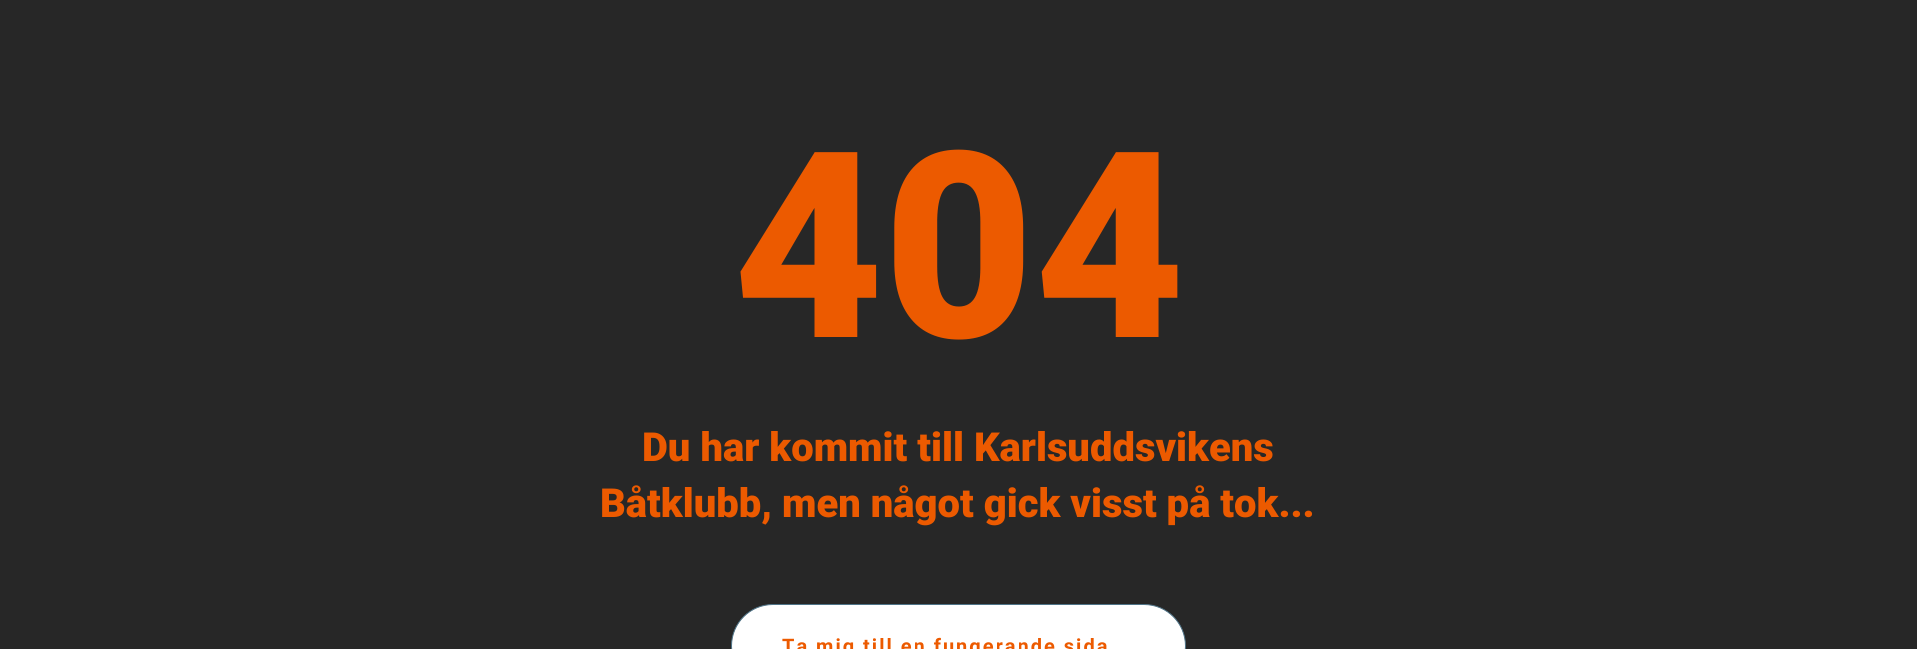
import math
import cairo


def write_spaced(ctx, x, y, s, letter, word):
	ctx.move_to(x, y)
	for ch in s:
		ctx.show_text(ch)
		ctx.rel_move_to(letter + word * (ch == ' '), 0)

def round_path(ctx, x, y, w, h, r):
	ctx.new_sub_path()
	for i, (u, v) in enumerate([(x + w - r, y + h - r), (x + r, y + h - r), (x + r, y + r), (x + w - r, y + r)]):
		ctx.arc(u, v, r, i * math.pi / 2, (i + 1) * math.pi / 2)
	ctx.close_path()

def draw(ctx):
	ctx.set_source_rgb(0.153, 0.153, 0.153)
	ctx.paint()
	ctx.select_font_face('Roboto Black')
	ctx.set_font_size(260)
	ctx.set_source_rgb(0.922, 0.353, 0)
	ctx.move_to(733, 337)
	ctx.show_text('404')
	ctx.set_font_size(40)
	ctx.move_to(642, 461)
	ctx.show_text('Du har kommit till Karlsuddsvikens')
	ctx.move_to(600, 517)
	ctx.show_text('Båtklubb, men något gick visst på tok...')
	ctx.set_source_rgb(1, 1, 1)
	round_path(ctx, 731.5, 604.5, 454, 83, 41.5)
	ctx.fill_preserve()
	ctx.set_source_rgb(0.306, 0.451, 0.529)
	ctx.set_line_width(1)
	ctx.stroke()
	ctx.select_font_face('Roboto', cairo.FONT_SLANT_NORMAL, cairo.FONT_WEIGHT_BOLD)
	ctx.set_font_size(20)
	ctx.set_source_rgb(0.922, 0.353, 0)
	write_spaced(ctx, 782, 653, 'Ta mig till en fungerande sida', 2, 0)


surface = cairo.ImageSurface(cairo.FORMAT_RGB24, 1917, 649)
ctx = cairo.Context(surface)
options = cairo.FontOptions()
options.set_hint_metrics(cairo.HINT_METRICS_OFF)
options.set_hint_style(cairo.HINT_STYLE_NONE)
ctx.set_font_options(options)
ctx.set_miter_limit(4)
draw(ctx)
surface.write_to_png('image.png')
